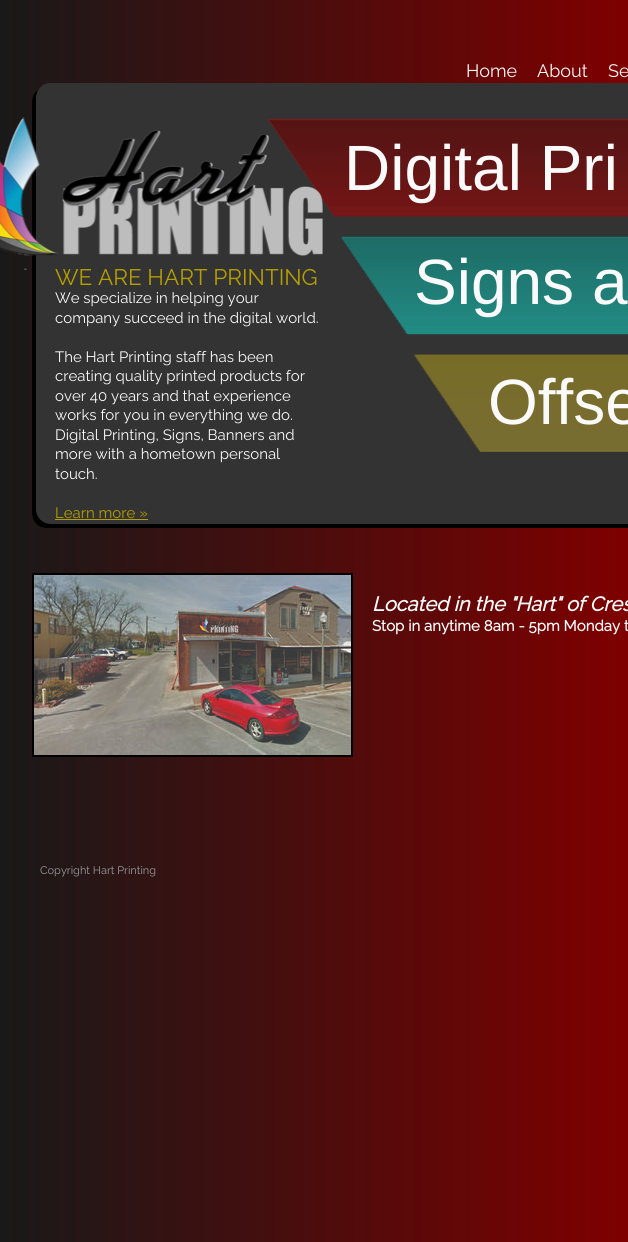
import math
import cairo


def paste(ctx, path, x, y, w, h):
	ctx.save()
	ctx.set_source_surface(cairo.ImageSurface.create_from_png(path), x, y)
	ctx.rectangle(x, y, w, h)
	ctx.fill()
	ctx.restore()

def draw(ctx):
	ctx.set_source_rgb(1, 1, 1)
	ctx.paint()
	gradient = cairo.LinearGradient(0, 621, 628, 621)
	gradient.add_color_stop_rgba(0, 0.098, 0.098, 0.098, 1)
	gradient.add_color_stop_rgba(1, 0.498, 0, 0, 1)
	ctx.set_source(gradient)
	ctx.rectangle(0, 0, 628, 1242)
	ctx.fill()
	ctx.select_font_face('Raleway Thin')
	ctx.set_font_size(18)
	ctx.set_source_rgb(0.98, 0.98, 0.98)
	for x, y, s in [
		(466, 77, 'Home'),
		(537, 77, 'About'),
		(608, 77, 'Se'),
	]:
		ctx.move_to(x, y)
		ctx.show_text(s)
	ctx.set_source_rgb(0, 0, 0)
	ctx.new_path()
	ctx.move_to(47, 87)
	ctx.line_to(628, 87)
	ctx.line_to(628, 528)
	ctx.line_to(47, 528)
	ctx.curve_to(38.5, 528, 32, 521.5, 32, 513)
	ctx.line_to(32, 102)
	ctx.curve_to(32, 93.5, 38.5, 87, 47, 87)
	ctx.close_path()
	ctx.fill()
	ctx.set_source_rgb(0.2, 0.2, 0.2)
	ctx.new_path()
	ctx.move_to(51, 83)
	ctx.line_to(628, 83)
	ctx.line_to(628, 524)
	ctx.line_to(51, 524)
	ctx.curve_to(42.5, 524, 36, 517.5, 36, 509)
	ctx.line_to(36, 98)
	ctx.curve_to(36, 89.5, 42.5, 83, 51, 83)
	ctx.close_path()
	ctx.fill()
	paste(ctx, 'media/2.png', 268, 119, 360, 333)
	ctx.set_font_size(22.5)
	ctx.set_source_rgb(0.71, 0.62, 0)
	ctx.move_to(55, 285)
	ctx.show_text('WE ARE HART PRINTING')
	paste(ctx, 'media/1.png', 0, 117, 323, 153)
	ctx.select_font_face('Liberation Sans')
	ctx.set_font_size(64)
	ctx.set_source_rgb(0.98, 0.98, 0.98)
	ctx.move_to(344, 190)
	ctx.show_text('Digital Pri')
	ctx.move_to(414, 304)
	ctx.show_text('Signs a')
	ctx.select_font_face('Raleway Thin')
	ctx.set_font_size(15)
	for x, y, s in [
		(55, 303, 'We specialize in helping your'),
		(55, 323, 'company succeed in the digital world.'),
		(55, 362, 'The Hart Printing staff has been'),
		(55, 381, 'creating quality printed products for'),
		(55, 401, 'over 40 years and that experience'),
		(55, 420, 'works for you in everything we do.'),
		(55, 440, 'Digital Printing, Signs, Banners and'),
		(55, 459, 'more with a hometown personal'),
		(55, 479, 'touch.'),
	]:
		ctx.move_to(x, y)
		ctx.show_text(s)
	ctx.set_source_rgb(0.71, 0.62, 0)
	ctx.move_to(55, 518)
	ctx.show_text('Learn more »')
	ctx.rectangle(55, 519, 93, 1)
	ctx.fill()
	ctx.select_font_face('Liberation Sans')
	ctx.set_font_size(64)
	ctx.set_source_rgb(0.98, 0.98, 0.98)
	ctx.move_to(488, 424)
	ctx.show_text('Offse')
	ctx.rectangle(33, 574, 319, 182)
	ctx.set_source_rgb(0, 0, 0)
	ctx.stroke()
	paste(ctx, 'media/3.png', 34, 575, 317, 180)
	ctx.select_font_face('Raleway', cairo.FONT_SLANT_ITALIC, cairo.FONT_WEIGHT_BOLD)
	ctx.set_font_size(20)
	ctx.set_source_rgb(0.98, 0.98, 0.98)
	ctx.move_to(372, 611)
	ctx.show_text('Located in the "Hart" of Cres')
	ctx.select_font_face('Raleway', cairo.FONT_SLANT_NORMAL, cairo.FONT_WEIGHT_BOLD)
	ctx.set_font_size(15)
	ctx.move_to(372, 631)
	ctx.show_text('Stop in anytime 8am - 5pm Monday t')
	ctx.select_font_face('Raleway Thin')
	ctx.set_font_size(11)
	ctx.set_source_rgb(0.604, 0.608, 0.616)
	ctx.move_to(40, 874)
	ctx.show_text('Copyright Hart Printing')


surface = cairo.ImageSurface(cairo.FORMAT_RGB24, 628, 1242)
ctx = cairo.Context(surface)
options = cairo.FontOptions()
options.set_hint_metrics(cairo.HINT_METRICS_OFF)
options.set_hint_style(cairo.HINT_STYLE_NONE)
ctx.set_font_options(options)
ctx.set_miter_limit(4)
draw(ctx)
surface.write_to_png('image.png')
